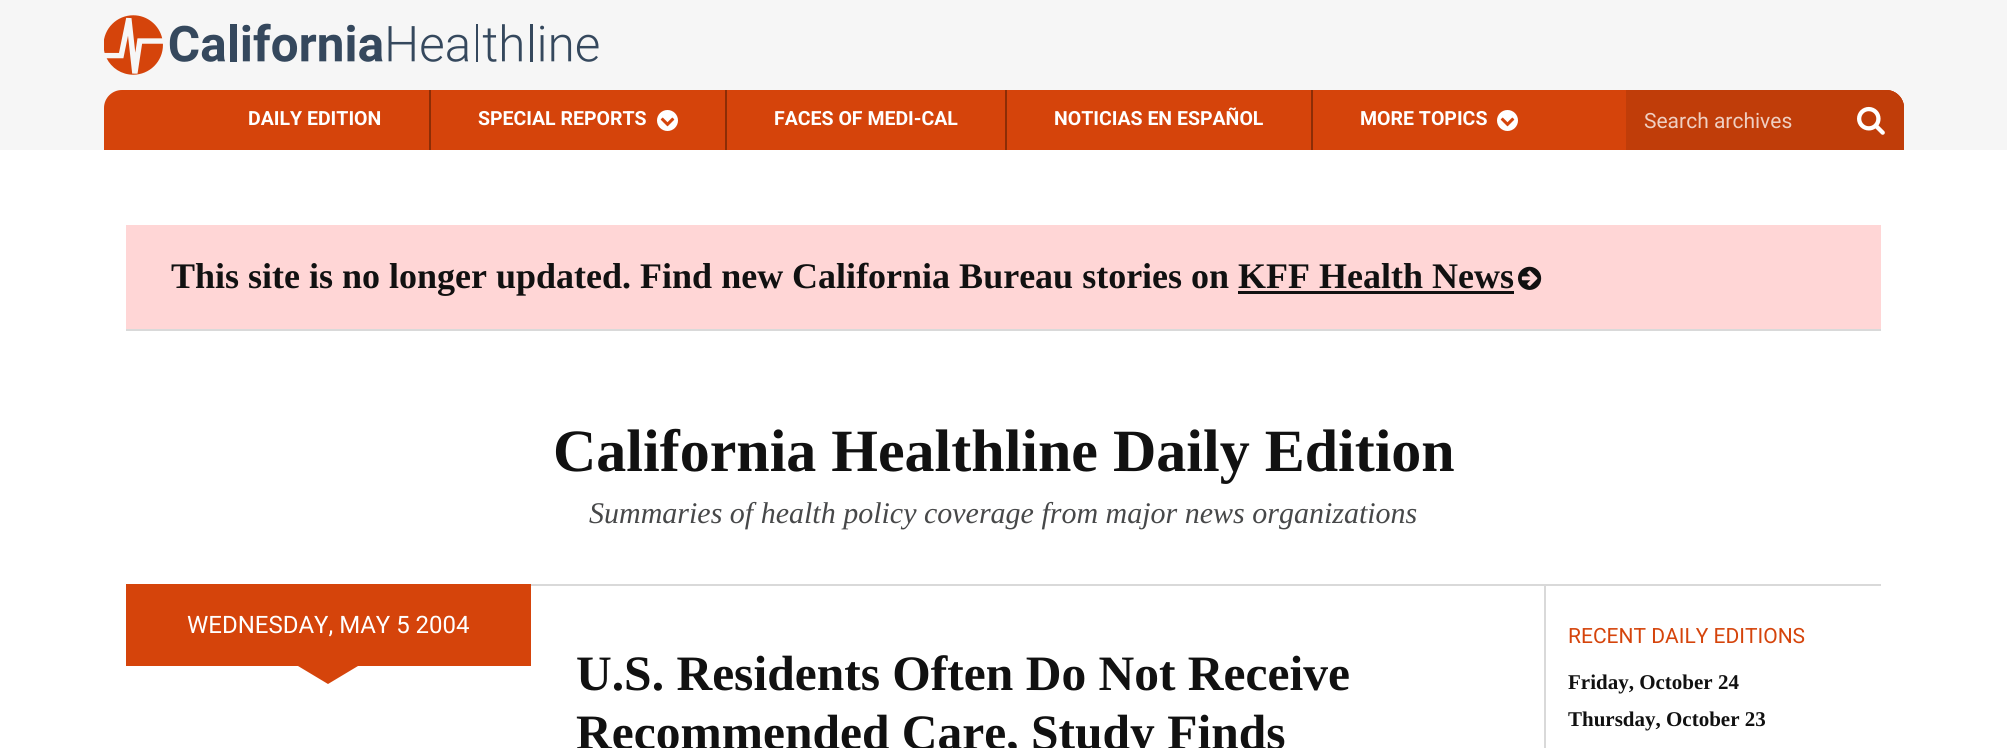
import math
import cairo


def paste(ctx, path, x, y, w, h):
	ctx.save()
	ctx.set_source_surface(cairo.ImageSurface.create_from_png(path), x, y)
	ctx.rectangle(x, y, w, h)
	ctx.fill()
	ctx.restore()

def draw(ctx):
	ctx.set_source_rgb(1, 1, 1)
	ctx.paint()
	ctx.set_source_rgb(0.961, 0.961, 0.961)
	ctx.rectangle(0, 0, 2007, 150)
	ctx.fill()
	paste(ctx, 'media/1.png', 104, 15, 495, 60)
	ctx.set_source_rgb(0.835, 0.267, 0.043)
	ctx.new_path()
	ctx.move_to(122, 90)
	ctx.line_to(1886, 90)
	ctx.curve_to(1896, 90, 1904, 98, 1904, 108)
	ctx.line_to(1904, 150)
	ctx.line_to(104, 150)
	ctx.line_to(104, 108)
	ctx.curve_to(104, 98, 112, 90, 122, 90)
	ctx.close_path()
	ctx.fill()
	ctx.select_font_face('Roboto', cairo.FONT_SLANT_NORMAL, cairo.FONT_WEIGHT_BOLD)
	ctx.set_font_size(19.5)
	ctx.set_source_rgb(1, 1, 1)
	ctx.move_to(248, 125)
	ctx.show_text('DAILY EDITION')
	ctx.set_source_rgb(0.549, 0.176, 0.027)
	ctx.rectangle(429, 90, 2, 60)
	ctx.fill()
	ctx.set_source_rgb(1, 1, 1)
	ctx.move_to(478, 125)
	ctx.show_text('SPECIAL REPORTS')
	ctx.new_path()
	ctx.arc(667.5, 120.5, 10.5, 0, 2 * math.pi)
	ctx.fill()
	paste(ctx, 'media/2.png', 660, 117, 15, 10)
	ctx.set_source_rgb(0.549, 0.176, 0.027)
	ctx.rectangle(725, 90, 2, 60)
	ctx.fill()
	ctx.set_source_rgb(1, 1, 1)
	ctx.move_to(774, 125)
	ctx.show_text('FACES OF MEDI-CAL')
	ctx.set_source_rgb(0.549, 0.176, 0.027)
	ctx.rectangle(1005, 90, 2, 60)
	ctx.fill()
	ctx.set_source_rgb(1, 1, 1)
	ctx.move_to(1054, 125)
	ctx.show_text('NOTICIAS EN ESPAÑOL')
	ctx.set_source_rgb(0.549, 0.176, 0.027)
	ctx.rectangle(1311, 90, 2, 60)
	ctx.fill()
	ctx.set_source_rgb(1, 1, 1)
	ctx.move_to(1360, 125)
	ctx.show_text('MORE TOPICS')
	ctx.new_path()
	ctx.arc(1507.5, 120.5, 10.5, 0, 2 * math.pi)
	ctx.fill()
	paste(ctx, 'media/2.png', 1500, 117, 15, 10)
	ctx.set_source_rgb(0.753, 0.239, 0.039)
	ctx.new_path()
	ctx.move_to(1626, 90)
	ctx.line_to(1886, 90)
	ctx.curve_to(1896, 90, 1904, 98, 1904, 108)
	ctx.line_to(1904, 150)
	ctx.line_to(1626, 150)
	ctx.close_path()
	ctx.fill()
	ctx.select_font_face('Roboto')
	ctx.set_font_size(21)
	ctx.set_source_rgb(0.937, 0.812, 0.761)
	ctx.move_to(1644, 128)
	ctx.show_text('Search archives')
	ctx.set_source_rgb(0.753, 0.239, 0.039)
	ctx.new_path()
	ctx.move_to(1838, 90)
	ctx.line_to(1886, 90)
	ctx.curve_to(1896, 90, 1904, 98, 1904, 108)
	ctx.line_to(1904, 150)
	ctx.line_to(1838, 150)
	ctx.close_path()
	ctx.fill()
	paste(ctx, 'media/3.png', 1857, 106, 28, 29)
	ctx.set_source_rgb(1, 0.839, 0.839)
	ctx.rectangle(126, 225, 1755, 104)
	ctx.fill()
	ctx.set_source_rgb(0.851, 0.851, 0.851)
	ctx.rectangle(126, 329, 1755, 2)
	ctx.fill()
	ctx.select_font_face('Liberation Serif', cairo.FONT_SLANT_NORMAL, cairo.FONT_WEIGHT_BOLD)
	ctx.set_font_size(36)
	ctx.set_source_rgb(0.067, 0.067, 0.067)
	ctx.move_to(171, 288)
	ctx.show_text('This site is no longer updated. Find new California Bureau stories on KFF Health News')
	paste(ctx, 'media/4.png', 1518, 266, 24, 24)
	ctx.rectangle(1238, 291, 276, 3)
	ctx.fill()
	ctx.set_source_rgb(0.851, 0.851, 0.851)
	ctx.rectangle(531, 584, 1350, 2)
	ctx.fill()
	ctx.set_font_size(60)
	ctx.set_source_rgb(0.067, 0.067, 0.067)
	ctx.move_to(553, 471)
	ctx.show_text('California Healthline Daily Edition')
	ctx.select_font_face('Liberation Serif', cairo.FONT_SLANT_ITALIC)
	ctx.set_font_size(30)
	ctx.set_source_rgb(0.278, 0.282, 0.286)
	ctx.move_to(589, 523)
	ctx.show_text('Summaries of health policy coverage from major news organizations')
	ctx.set_source_rgb(0.835, 0.267, 0.043)
	ctx.rectangle(126, 584, 405, 82)
	ctx.fill()
	ctx.select_font_face('Roboto')
	ctx.set_font_size(24)
	ctx.set_source_rgb(1, 1, 1)
	ctx.move_to(187, 633)
	ctx.show_text('WEDNESDAY, MAY 5 2004')
	ctx.set_source_rgb(0.835, 0.267, 0.043)
	ctx.new_path()
	ctx.move_to(298, 666)
	ctx.line_to(358, 666)
	ctx.line_to(328, 684)
	ctx.close_path()
	ctx.fill()
	ctx.select_font_face('Liberation Serif', cairo.FONT_SLANT_NORMAL, cairo.FONT_WEIGHT_BOLD)
	ctx.set_font_size(49.5)
	ctx.set_source_rgb(0.067, 0.067, 0.067)
	ctx.move_to(576, 690)
	ctx.show_text('U.S. Residents Often Do Not Receive')
	ctx.move_to(576, 749)
	ctx.show_text('Recommended Care, Study Finds')
	ctx.set_source_rgb(0.851, 0.851, 0.851)
	ctx.rectangle(1544, 585, 2, 163)
	ctx.fill()
	ctx.select_font_face('Roboto')
	ctx.set_font_size(21)
	ctx.set_source_rgb(0.835, 0.267, 0.043)
	ctx.move_to(1568, 643)
	ctx.show_text('RECENT DAILY EDITIONS')
	ctx.select_font_face('Liberation Serif', cairo.FONT_SLANT_NORMAL, cairo.FONT_WEIGHT_BOLD)
	ctx.set_source_rgb(0.067, 0.067, 0.067)
	ctx.move_to(1568, 689)
	ctx.show_text('Friday, October 24')
	ctx.move_to(1568, 726)
	ctx.show_text('Thursday, October 23')


surface = cairo.ImageSurface(cairo.FORMAT_RGB24, 2007, 748)
ctx = cairo.Context(surface)
options = cairo.FontOptions()
options.set_hint_metrics(cairo.HINT_METRICS_OFF)
options.set_hint_style(cairo.HINT_STYLE_NONE)
ctx.set_font_options(options)
ctx.set_miter_limit(4)
draw(ctx)
surface.write_to_png('image.png')
